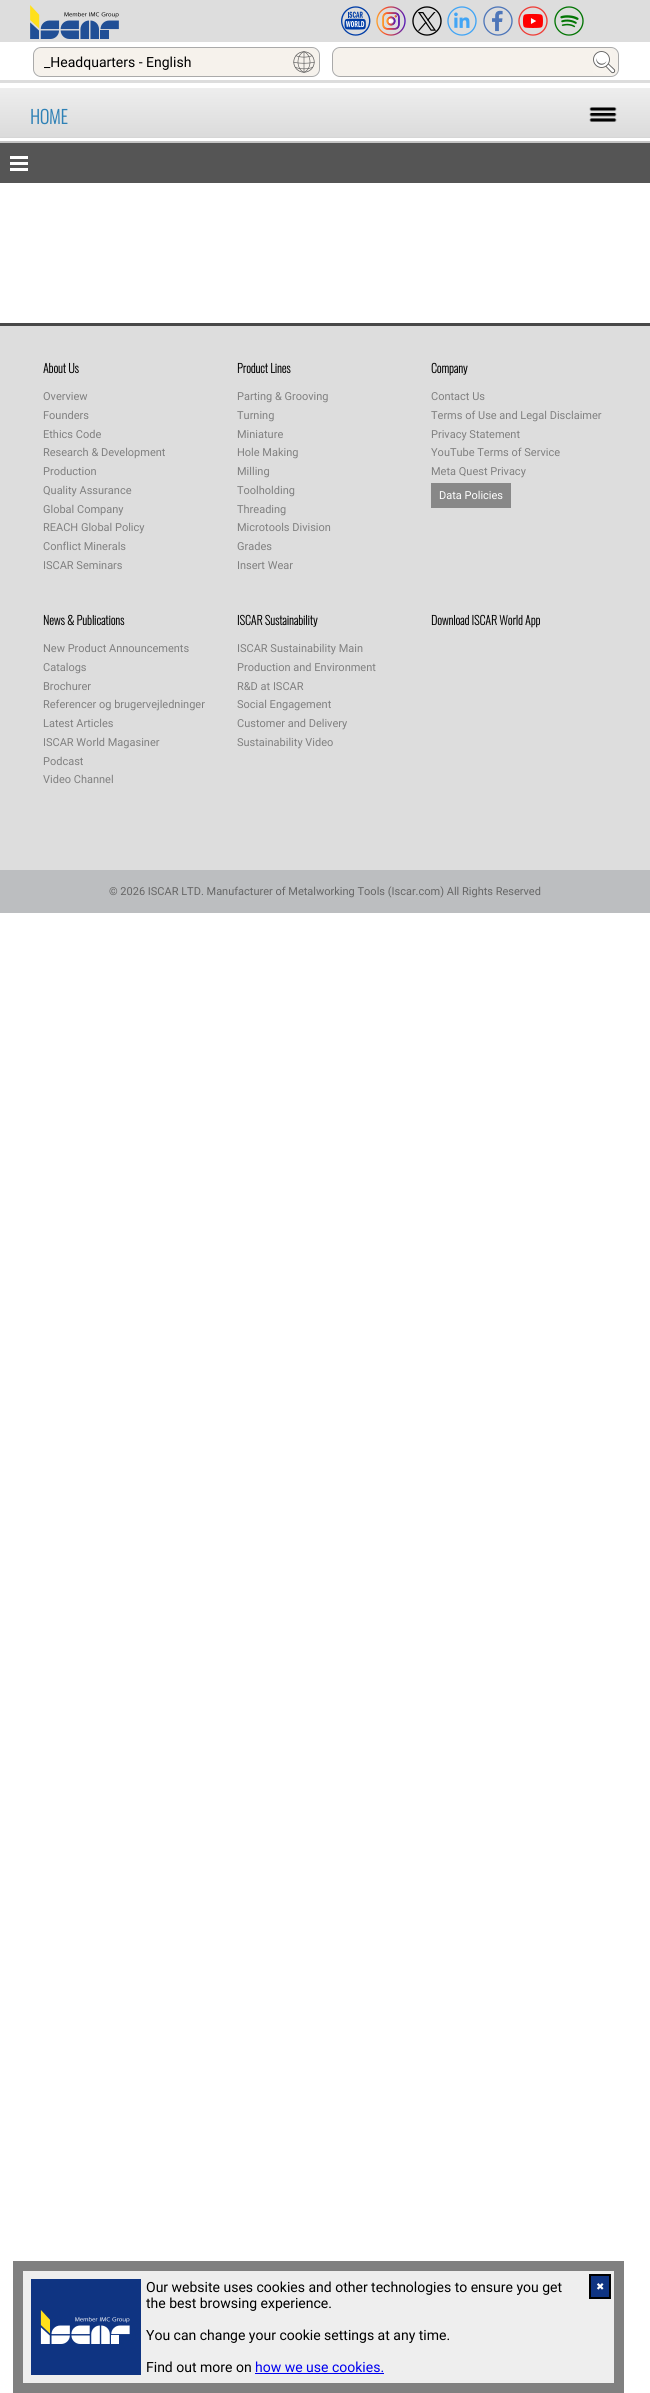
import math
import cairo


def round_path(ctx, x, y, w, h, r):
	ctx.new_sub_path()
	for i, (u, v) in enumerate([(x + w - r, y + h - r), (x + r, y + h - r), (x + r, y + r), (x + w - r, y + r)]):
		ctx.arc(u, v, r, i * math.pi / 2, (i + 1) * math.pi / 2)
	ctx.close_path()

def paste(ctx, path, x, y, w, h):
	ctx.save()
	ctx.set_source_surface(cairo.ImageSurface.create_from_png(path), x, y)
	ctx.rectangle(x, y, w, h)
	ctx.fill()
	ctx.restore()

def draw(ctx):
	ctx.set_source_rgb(1, 1, 1)
	ctx.paint()
	ctx.set_source_rgb(0.867, 0.867, 0.867)
	ctx.rectangle(0, 0, 650, 83)
	ctx.fill()
	paste(ctx, 'media/1.png', 30, 5, 89, 34)
	paste(ctx, 'media/2.png', 341, 6, 30, 30)
	paste(ctx, 'media/3.png', 376, 6, 30, 30)
	paste(ctx, 'media/4.png', 412, 6, 30, 30)
	paste(ctx, 'media/5.png', 447, 6, 30, 30)
	paste(ctx, 'media/6.png', 483, 6, 30, 30)
	paste(ctx, 'media/7.png', 518, 6, 30, 30)
	paste(ctx, 'media/8.png', 554, 6, 30, 30)
	ctx.set_source_rgb(1, 1, 1)
	ctx.rectangle(0, 42, 650, 38)
	ctx.fill()
	ctx.set_source_rgb(0.961, 0.949, 0.922)
	round_path(ctx, 34, 48, 285, 28, 7)
	ctx.fill()
	paste(ctx, 'media/9.png', 293, 51, 22, 22)
	round_path(ctx, 33.5, 47.5, 286, 29, 7.5)
	ctx.set_source_rgb(0.667, 0.667, 0.667)
	ctx.set_line_width(1)
	ctx.stroke()
	ctx.select_font_face('Roboto')
	ctx.set_font_size(14)
	ctx.set_source_rgb(0, 0, 0)
	ctx.move_to(44, 67)
	ctx.show_text('_Headquarters - English')
	ctx.set_source_rgb(0.961, 0.949, 0.922)
	round_path(ctx, 333, 48, 285, 28, 7)
	ctx.fill()
	paste(ctx, 'media/10.png', 593, 51, 23, 23)
	ctx.set_source_rgba(1, 1, 1, 0.07)
	ctx.rectangle(593, 51, 19, 22)
	ctx.fill()
	round_path(ctx, 332.5, 47.5, 286, 29, 7.5)
	ctx.set_source_rgb(0.667, 0.667, 0.667)
	ctx.stroke()
	gradient = cairo.LinearGradient(325, 88, 325, 137)
	gradient.add_color_stop_rgba(0, 0.933, 0.933, 0.933, 1)
	gradient.add_color_stop_rgba(1, 0.859, 0.859, 0.859, 1)
	ctx.set_source(gradient)
	ctx.rectangle(0, 88, 650, 49)
	ctx.fill()
	ctx.set_source_rgb(0.839, 0.839, 0.839)
	ctx.rectangle(0, 137, 650, 1)
	ctx.fill()
	ctx.select_font_face('Oswald', cairo.FONT_SLANT_NORMAL, cairo.FONT_WEIGHT_BOLD)
	ctx.set_font_size(18)
	ctx.set_source_rgb(0.18, 0.506, 0.714)
	ctx.move_to(30, 124)
	ctx.show_text('HOME')
	paste(ctx, 'media/11.png', 589, 107, 28, 15)
	ctx.set_source_rgb(0.933, 0.933, 0.933)
	ctx.rectangle(18, 2266, 601, 122)
	ctx.fill_preserve()
	ctx.set_source_rgb(0.502, 0.502, 0.502)
	ctx.set_line_width(10)
	ctx.stroke()
	ctx.set_source_rgb(0.059, 0.204, 0.51)
	ctx.rectangle(31, 2279, 110, 96)
	ctx.fill()
	paste(ctx, 'media/12.png', 40, 2310, 90, 34)
	ctx.select_font_face('Roboto')
	ctx.set_font_size(14)
	ctx.set_source_rgb(0, 0, 0)
	for x, y, s in [
		(146, 2292, 'Our website uses cookies and other technologies to ensure you get'),
		(146, 2308, 'the best browsing experience.'),
		(146, 2340, 'You can change your cookie settings at any time.'),
		(146, 2372, 'Find out more on'),
	]:
		ctx.move_to(x, y)
		ctx.show_text(s)
	ctx.set_source_rgb(0, 0, 0.933)
	ctx.move_to(255, 2372)
	ctx.show_text('how we use cookies.')
	ctx.rectangle(255, 2373, 129, 1)
	ctx.fill()
	ctx.set_source_rgb(0.059, 0.204, 0.51)
	ctx.rectangle(590, 2275, 20, 23)
	ctx.fill_preserve()
	ctx.set_source_rgb(0, 0, 0)
	ctx.set_line_width(2)
	ctx.stroke()
	ctx.select_font_face('DejaVu Sans')
	ctx.set_font_size(10)
	ctx.set_source_rgb(1, 1, 1)
	ctx.move_to(596, 2290)
	ctx.show_text('✖')
	ctx.set_source_rgb(0.773, 0.773, 0.773)
	ctx.rectangle(0, 141, 650, 2)
	ctx.fill()
	ctx.set_source_rgb(0.333, 0.333, 0.333)
	ctx.rectangle(0, 143, 650, 40)
	ctx.fill()
	paste(ctx, 'media/13.png', 10, 156, 18, 15)
	ctx.set_source_rgb(0.867, 0.867, 0.867)
	ctx.rectangle(0, 326, 650, 544)
	ctx.fill()
	ctx.set_source_rgb(0.282, 0.282, 0.282)
	ctx.rectangle(0, 323, 650, 3)
	ctx.fill()
	ctx.select_font_face('Oswald', cairo.FONT_SLANT_NORMAL, cairo.FONT_WEIGHT_BOLD)
	ctx.set_font_size(12)
	ctx.set_source_rgb(0, 0, 0)
	ctx.move_to(43, 373)
	ctx.show_text('About Us')
	ctx.select_font_face('Roboto')
	ctx.set_font_size(11)
	ctx.set_source_rgb(0.502, 0.502, 0.502)
	for x, y, s in [
		(43, 400, 'Overview'),
		(43, 419, 'Founders'),
		(43, 438, 'Ethics Code'),
		(43, 456, 'Research & Development'),
		(43, 475, 'Production'),
		(43, 494, 'Quality Assurance'),
		(43, 513, 'Global Company'),
		(43, 531, 'REACH Global Policy'),
		(43, 550, 'Conflict Minerals'),
		(43, 569, 'ISCAR Seminars'),
	]:
		ctx.move_to(x, y)
		ctx.show_text(s)
	ctx.select_font_face('Oswald', cairo.FONT_SLANT_NORMAL, cairo.FONT_WEIGHT_BOLD)
	ctx.set_font_size(12)
	ctx.set_source_rgb(0, 0, 0)
	ctx.move_to(237, 373)
	ctx.show_text('Product Lines')
	ctx.select_font_face('Roboto')
	ctx.set_font_size(11)
	ctx.set_source_rgb(0.502, 0.502, 0.502)
	for x, y, s in [
		(237, 400, 'Parting & Grooving'),
		(237, 419, 'Turning'),
		(237, 438, 'Miniature'),
		(237, 456, 'Hole Making'),
		(237, 475, 'Milling'),
		(237, 494, 'Toolholding'),
		(237, 513, 'Threading'),
		(237, 531, 'Microtools Division'),
		(237, 550, 'Grades'),
		(237, 569, 'Insert Wear'),
	]:
		ctx.move_to(x, y)
		ctx.show_text(s)
	ctx.select_font_face('Oswald', cairo.FONT_SLANT_NORMAL, cairo.FONT_WEIGHT_BOLD)
	ctx.set_font_size(12)
	ctx.set_source_rgb(0, 0, 0)
	ctx.move_to(431, 373)
	ctx.show_text('Company')
	ctx.select_font_face('Roboto')
	ctx.set_font_size(11)
	ctx.set_source_rgb(0.502, 0.502, 0.502)
	for x, y, s in [
		(431, 400, 'Contact Us'),
		(431, 419, 'Terms of Use and Legal Disclaimer'),
		(431, 438, 'Privacy Statement'),
		(431, 456, 'YouTube Terms of Service'),
		(431, 475, 'Meta Quest Privacy'),
	]:
		ctx.move_to(x, y)
		ctx.show_text(s)
	ctx.set_source_rgb(0.533, 0.533, 0.533)
	ctx.rectangle(431, 483, 80, 25)
	ctx.fill()
	ctx.set_source_rgb(1, 1, 1)
	ctx.move_to(439, 499)
	ctx.show_text('Data Policies')
	ctx.select_font_face('Oswald', cairo.FONT_SLANT_NORMAL, cairo.FONT_WEIGHT_BOLD)
	ctx.set_font_size(12)
	ctx.set_source_rgb(0, 0, 0)
	ctx.move_to(43, 625)
	ctx.show_text('News & Publications')
	ctx.select_font_face('Roboto')
	ctx.set_font_size(11)
	ctx.set_source_rgb(0.502, 0.502, 0.502)
	for x, y, s in [
		(43, 652, 'New Product Announcements'),
		(43, 671, 'Catalogs'),
		(43, 690, 'Brochurer'),
		(43, 708, 'Referencer og brugervejledninger'),
		(43, 727, 'Latest Articles'),
		(43, 746, 'ISCAR World Magasiner'),
		(43, 765, 'Podcast'),
		(43, 783, 'Video Channel'),
	]:
		ctx.move_to(x, y)
		ctx.show_text(s)
	ctx.select_font_face('Oswald', cairo.FONT_SLANT_NORMAL, cairo.FONT_WEIGHT_BOLD)
	ctx.set_font_size(12)
	ctx.set_source_rgb(0, 0, 0)
	ctx.move_to(237, 625)
	ctx.show_text('ISCAR Sustainability')
	ctx.select_font_face('Roboto')
	ctx.set_font_size(11)
	ctx.set_source_rgb(0.502, 0.502, 0.502)
	for x, y, s in [
		(237, 652, 'ISCAR Sustainability Main'),
		(237, 671, 'Production and Environment'),
		(237, 690, 'R&D at ISCAR'),
		(237, 708, 'Social Engagement'),
		(237, 727, 'Customer and Delivery'),
		(237, 746, 'Sustainability Video'),
	]:
		ctx.move_to(x, y)
		ctx.show_text(s)
	ctx.select_font_face('Oswald', cairo.FONT_SLANT_NORMAL, cairo.FONT_WEIGHT_BOLD)
	ctx.set_font_size(12)
	ctx.set_source_rgb(0, 0, 0)
	ctx.move_to(431, 625)
	ctx.show_text('Download ISCAR World App')
	ctx.set_source_rgb(0.737, 0.745, 0.753)
	ctx.rectangle(0, 870, 650, 43)
	ctx.fill()
	ctx.select_font_face('Roboto')
	ctx.set_font_size(11)
	ctx.set_source_rgb(0.4, 0.4, 0.4)
	ctx.move_to(109, 895)
	ctx.show_text('© 2026 ISCAR LTD. Manufacturer of Metalworking Tools (Iscar.com) All Rights Reserved')


surface = cairo.ImageSurface(cairo.FORMAT_RGB24, 650, 2393)
ctx = cairo.Context(surface)
options = cairo.FontOptions()
options.set_hint_metrics(cairo.HINT_METRICS_OFF)
options.set_hint_style(cairo.HINT_STYLE_NONE)
ctx.set_font_options(options)
ctx.set_miter_limit(4)
draw(ctx)
surface.write_to_png('image.png')
